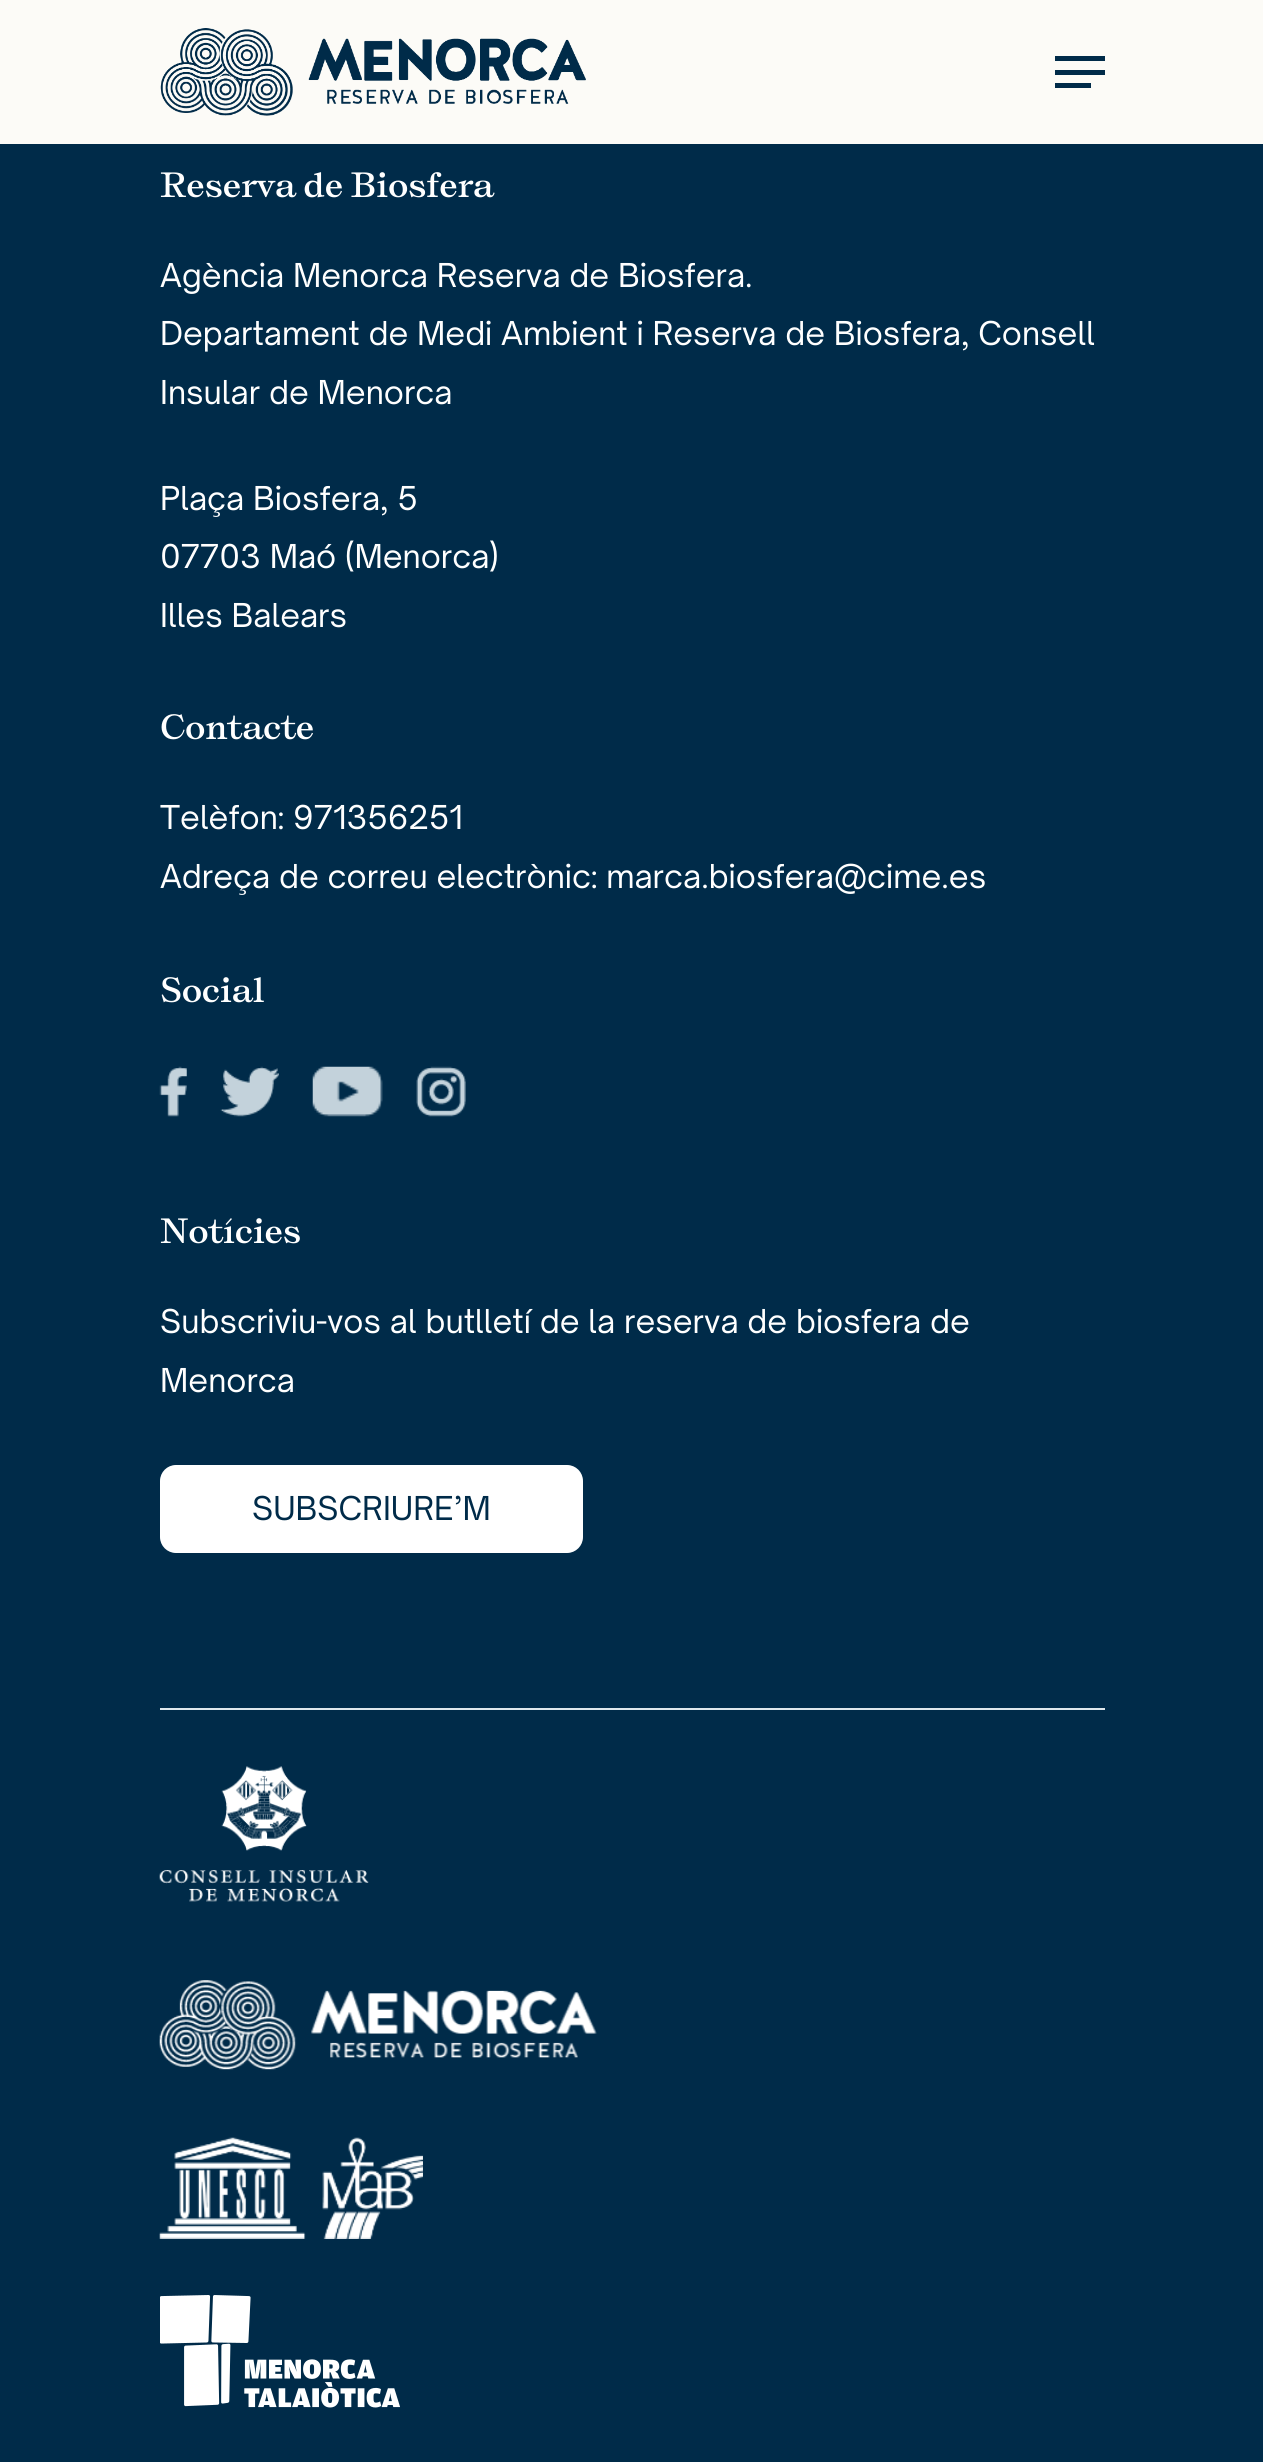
import math
import cairo


def round_path(ctx, x, y, w, h, r):
	ctx.new_sub_path()
	for i, (u, v) in enumerate([(x + w - r, y + h - r), (x + r, y + h - r), (x + r, y + r), (x + w - r, y + r)]):
		ctx.arc(u, v, r, i * math.pi / 2, (i + 1) * math.pi / 2)
	ctx.close_path()

def paste(ctx, path, x, y, w, h):
	ctx.save()
	ctx.set_source_surface(cairo.ImageSurface.create_from_png(path), x, y)
	ctx.rectangle(x, y, w, h)
	ctx.fill()
	ctx.restore()

def draw(ctx):
	ctx.set_source_rgb(0, 0.169, 0.286)
	ctx.paint()
	ctx.set_source_rgb(0.988, 0.984, 0.965)
	ctx.rectangle(0, 0, 1263, 144)
	ctx.fill()
	paste(ctx, 'media/1.png', 160, 28, 426, 88)
	ctx.set_source_rgb(0, 0.169, 0.286)
	ctx.rectangle(1055, 56, 50, 5)
	ctx.rectangle(1055, 83, 36, 5)
	ctx.rectangle(1055, 70, 50, 5)
	ctx.fill()
	ctx.select_font_face('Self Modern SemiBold')
	ctx.set_font_size(31.5)
	ctx.set_source_rgb(1, 1, 1)
	ctx.move_to(160, 197)
	ctx.show_text('Reserva de Biosfera')
	ctx.select_font_face('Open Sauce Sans')
	for x, y, s in [
		(160, 287, 'Agència Menorca Reserva de Biosfera.'),
		(160, 345, 'Departament de Medi Ambient i Reserva de Biosfera, Consell'),
		(160, 404, 'Insular de Menorca'),
		(160, 510, 'Plaça Biosfera, 5'),
		(160, 568, '07703 Maó (Menorca)'),
		(160, 627, 'Illes Balears'),
	]:
		ctx.move_to(x, y)
		ctx.show_text(s)
	ctx.select_font_face('Self Modern SemiBold')
	ctx.move_to(160, 739)
	ctx.show_text('Contacte')
	ctx.select_font_face('Open Sauce Sans')
	ctx.move_to(160, 829)
	ctx.show_text('Telèfon: 971356251')
	ctx.move_to(160, 888)
	ctx.show_text('Adreça de correu electrònic: marca.biosfera@cime.es')
	ctx.select_font_face('Self Modern SemiBold')
	ctx.move_to(160, 1002)
	ctx.show_text('Social')
	paste(ctx, 'media/2.png', 159, 1066, 28, 51)
	paste(ctx, 'media/3.png', 220, 1066, 59, 51)
	paste(ctx, 'media/4.png', 312, 1066, 71, 51)
	paste(ctx, 'media/5.png', 416, 1066, 50, 51)
	ctx.move_to(160, 1243)
	ctx.show_text('Notícies')
	ctx.select_font_face('Open Sauce Sans')
	ctx.move_to(160, 1333)
	ctx.show_text('Subscriviu-vos al butlletí de la reserva de biosfera de')
	ctx.move_to(160, 1392)
	ctx.show_text('Menorca')
	round_path(ctx, 161, 1466, 421, 86, 15)
	ctx.fill_preserve()
	ctx.stroke()
	ctx.set_source_rgb(0, 0.169, 0.286)
	ctx.move_to(252, 1520)
	ctx.show_text('SUBSCRIURE’M')
	ctx.set_source_rgb(0.875, 0.906, 0.918)
	ctx.rectangle(160, 1708, 945, 2)
	ctx.fill()
	paste(ctx, 'media/6.png', 159, 1766, 210, 136)
	paste(ctx, 'media/7.png', 159, 1980, 438, 90)
	paste(ctx, 'media/8.png', 159, 2137, 264, 102)
	paste(ctx, 'media/9.png', 160, 2295, 240, 113)


surface = cairo.ImageSurface(cairo.FORMAT_RGB24, 1263, 2462)
ctx = cairo.Context(surface)
options = cairo.FontOptions()
options.set_hint_metrics(cairo.HINT_METRICS_OFF)
options.set_hint_style(cairo.HINT_STYLE_NONE)
ctx.set_font_options(options)
ctx.set_miter_limit(4)
draw(ctx)
surface.write_to_png('image.png')
